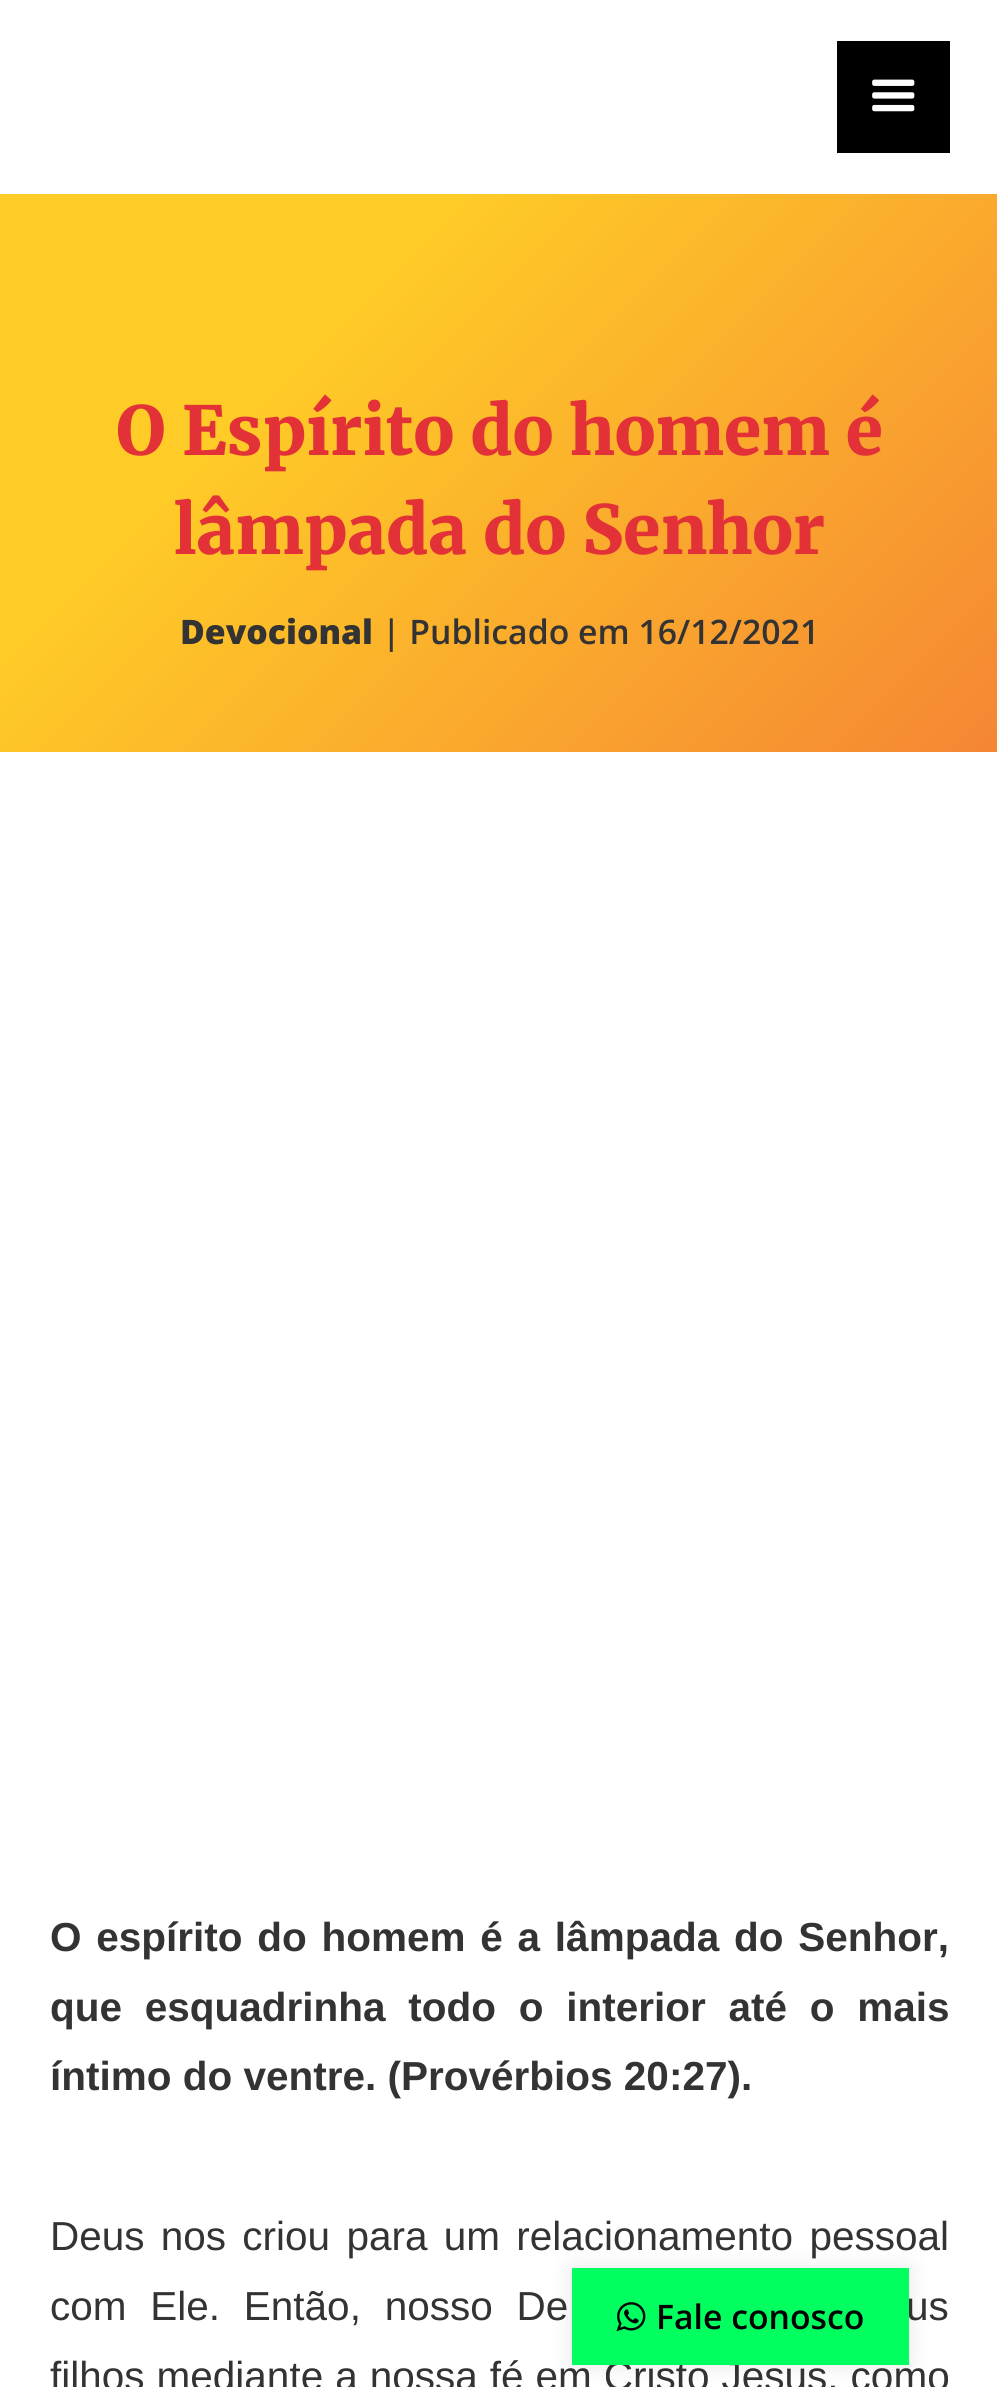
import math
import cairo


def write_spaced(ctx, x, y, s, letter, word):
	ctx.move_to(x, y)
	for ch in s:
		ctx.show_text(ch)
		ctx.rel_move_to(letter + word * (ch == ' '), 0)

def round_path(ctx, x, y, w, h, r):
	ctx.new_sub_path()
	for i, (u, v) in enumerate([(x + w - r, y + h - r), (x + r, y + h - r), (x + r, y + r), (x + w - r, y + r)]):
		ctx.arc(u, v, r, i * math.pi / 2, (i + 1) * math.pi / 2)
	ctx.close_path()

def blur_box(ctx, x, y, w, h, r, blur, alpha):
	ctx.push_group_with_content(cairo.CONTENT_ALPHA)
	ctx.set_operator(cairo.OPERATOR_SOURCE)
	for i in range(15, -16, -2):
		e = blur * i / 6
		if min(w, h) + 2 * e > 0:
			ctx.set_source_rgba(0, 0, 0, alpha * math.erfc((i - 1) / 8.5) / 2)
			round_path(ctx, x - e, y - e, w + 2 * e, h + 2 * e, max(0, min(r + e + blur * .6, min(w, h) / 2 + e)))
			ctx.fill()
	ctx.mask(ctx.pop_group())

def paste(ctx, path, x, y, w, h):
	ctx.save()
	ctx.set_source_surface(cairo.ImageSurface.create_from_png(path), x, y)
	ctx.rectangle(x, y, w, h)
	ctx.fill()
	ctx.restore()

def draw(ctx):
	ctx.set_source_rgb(1, 1, 1)
	ctx.paint()
	ctx.set_source_rgb(0, 0, 0)
	ctx.rectangle(837, 41, 113, 112)
	ctx.fill()
	paste(ctx, 'media/1.png', 872, 79, 43, 33)
	gradient = cairo.LinearGradient(110, 83, 889, 862)
	gradient.add_color_stop_rgba(0.3, 1, 0.796, 0.153, 1)
	gradient.add_color_stop_rgba(1, 0.961, 0.525, 0.204, 1)
	ctx.set_source(gradient)
	ctx.rectangle(0, 194, 997, 558)
	ctx.fill()
	ctx.select_font_face('Merriweather Black')
	ctx.set_font_size(67.5)
	ctx.set_source_rgb(0.886, 0.196, 0.22)
	ctx.move_to(116, 455)
	ctx.show_text('O Espírito do homem é')
	ctx.move_to(174, 554)
	ctx.show_text('lâmpada do Senhor')
	ctx.select_font_face('Open Sans ExtraBold')
	ctx.set_font_size(33.75)
	ctx.set_source_rgb(0.2, 0.2, 0.2)
	ctx.move_to(180, 644)
	ctx.show_text('Devocional')
	ctx.select_font_face('Open Sans SemiBold')
	ctx.move_to(382, 644)
	ctx.show_text('| Publicado em 16/12/2021')
	ctx.select_font_face('Liberation Sans', cairo.FONT_SLANT_NORMAL, cairo.FONT_WEIGHT_BOLD)
	ctx.set_font_size(40.5)
	write_spaced(ctx, 50, 1951, 'O espírito do homem é a lâmpada do Senhor,', 0, 3.5)
	write_spaced(ctx, 50, 2021, 'que esquadrinha todo o interior até o mais', 0, 11.5)
	ctx.move_to(50, 2090)
	ctx.show_text('íntimo do ventre. (Provérbios 20:27).')
	ctx.select_font_face('Liberation Sans')
	write_spaced(ctx, 50, 2250, 'Deus nos criou para um relacionamento pessoal', 0, 5)
	write_spaced(ctx, 50, 2320, 'com Ele. Então, nosso De', 0, 12.5)
	write_spaced(ctx, 906, 2320, 'us', 0, 12.5)
	write_spaced(ctx, 50, 2390, 'filhos mediante a nossa fé em Cristo Jesus, como', 0, 0.75)
	ctx.set_source_rgb(0, 0, 0)
	blur_box(ctx, 572, 2268, 337, 97, 0, 11, 0.1)
	ctx.set_source_rgb(0, 1, 0.373)
	ctx.rectangle(572, 2268, 337, 97)
	ctx.fill()
	paste(ctx, 'media/2.png', 616, 2302, 30, 30)
	ctx.select_font_face('Open Sans SemiBold')
	ctx.set_font_size(33.75)
	ctx.set_source_rgb(0, 0, 0)
	ctx.move_to(656, 2329)
	ctx.show_text('Fale conosco')


surface = cairo.ImageSurface(cairo.FORMAT_RGB24, 997, 2387)
ctx = cairo.Context(surface)
options = cairo.FontOptions()
options.set_hint_metrics(cairo.HINT_METRICS_OFF)
options.set_hint_style(cairo.HINT_STYLE_NONE)
ctx.set_font_options(options)
ctx.set_miter_limit(4)
draw(ctx)
surface.write_to_png('image.png')
